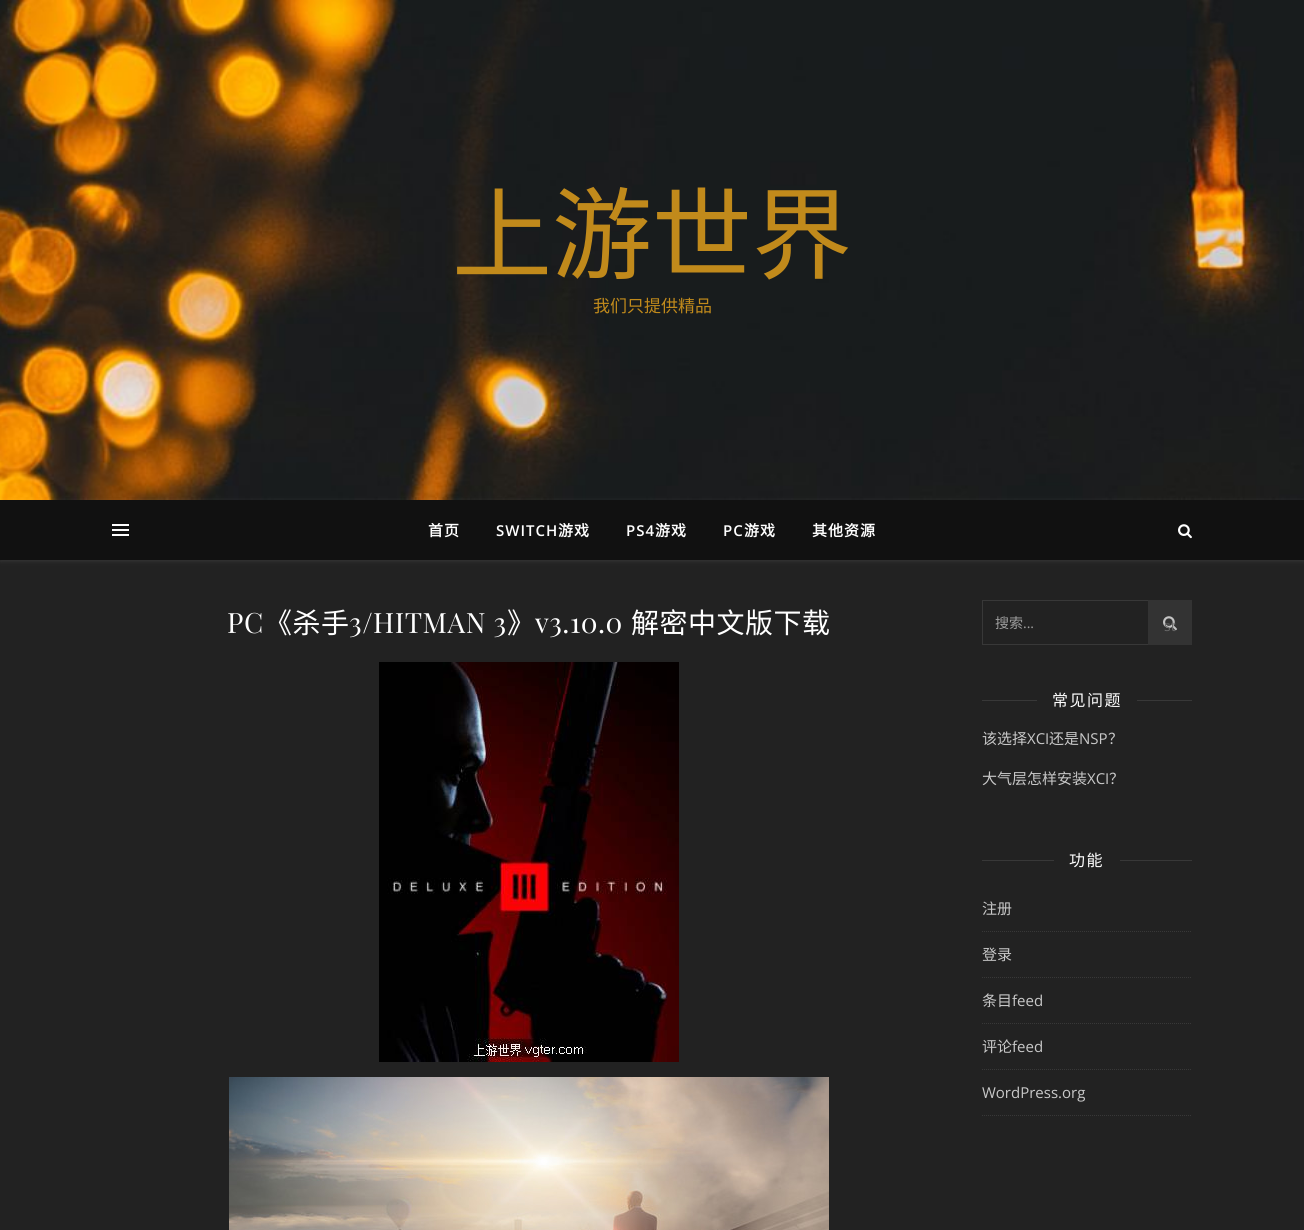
import math
import cairo


def write_spaced(ctx, x, y, s, letter, word):
	ctx.move_to(x, y)
	for ch in s:
		ctx.show_text(ch)
		ctx.rel_move_to(letter + word * (ch == ' '), 0)

def round_path(ctx, x, y, w, h, r):
	ctx.new_sub_path()
	for i, (u, v) in enumerate([(x + w - r, y + h - r), (x + r, y + h - r), (x + r, y + r), (x + w - r, y + r)]):
		ctx.arc(u, v, r, i * math.pi / 2, (i + 1) * math.pi / 2)
	ctx.close_path()

def blur_box(ctx, x, y, w, h, r, blur, alpha):
	ctx.push_group_with_content(cairo.CONTENT_ALPHA)
	ctx.set_operator(cairo.OPERATOR_SOURCE)
	for i in range(15, -16, -2):
		e = blur * i / 6
		if min(w, h) + 2 * e > 0:
			ctx.set_source_rgba(0, 0, 0, alpha * math.erfc((i - 1) / 8.5) / 2)
			round_path(ctx, x - e, y - e, w + 2 * e, h + 2 * e, max(0, min(r + e + blur * .6, min(w, h) / 2 + e)))
			ctx.fill()
	ctx.mask(ctx.pop_group())

def paste(ctx, path, x, y, w, h):
	ctx.save()
	ctx.set_source_surface(cairo.ImageSurface.create_from_png(path), x, y)
	ctx.rectangle(x, y, w, h)
	ctx.fill()
	ctx.restore()

def draw(ctx):
	ctx.set_source_rgb(0.133, 0.133, 0.133)
	ctx.paint()
	paste(ctx, 'media/1.png', 0, 0, 1304, 500)
	ctx.select_font_face('Noto Sans CJK SC')
	ctx.set_font_size(100)
	ctx.set_source_rgb(0.757, 0.541, 0.106)
	ctx.move_to(452, 271)
	ctx.show_text('上游世界')
	ctx.set_font_size(17)
	ctx.move_to(593, 312)
	ctx.show_text('我们只提供精品')
	ctx.set_source_rgb(1, 1, 1)
	blur_box(ctx, 0, 501, 1304, 60, 0, 2.5, 0.1)
	ctx.set_source_rgb(0.067, 0.067, 0.067)
	ctx.rectangle(0, 500, 1304, 60)
	ctx.fill()
	ctx.set_source_rgb(1, 1, 1)
	ctx.rectangle(112, 524, 17, 2)
	ctx.rectangle(112, 529, 17, 2)
	ctx.rectangle(112, 534, 17, 2)
	ctx.fill()
	ctx.select_font_face('Noto Sans CJK SC', cairo.FONT_SLANT_NORMAL, cairo.FONT_WEIGHT_BOLD)
	ctx.set_font_size(15)
	write_spaced(ctx, 428, 536, '首页', 1, 0)
	ctx.select_font_face('Open Sans SemiBold')
	write_spaced(ctx, 496, 536, 'SWITCH', 1, 0)
	ctx.select_font_face('Noto Sans CJK SC', cairo.FONT_SLANT_NORMAL, cairo.FONT_WEIGHT_BOLD)
	write_spaced(ctx, 558, 536, '游戏', 1, 0)
	ctx.select_font_face('Open Sans SemiBold')
	write_spaced(ctx, 626, 536, 'PS4', 1, 0)
	ctx.select_font_face('Noto Sans CJK SC', cairo.FONT_SLANT_NORMAL, cairo.FONT_WEIGHT_BOLD)
	write_spaced(ctx, 655, 536, '游戏', 1, 0)
	ctx.select_font_face('Open Sans SemiBold')
	write_spaced(ctx, 723, 536, 'PC', 1, 0)
	ctx.select_font_face('Noto Sans CJK SC', cairo.FONT_SLANT_NORMAL, cairo.FONT_WEIGHT_BOLD)
	write_spaced(ctx, 744, 536, '游戏', 1, 0)
	write_spaced(ctx, 812, 536, '其他资源', 1, 0)
	paste(ctx, 'media/2.png', 1178, 524, 14, 15)
	ctx.select_font_face('Playfair Display')
	ctx.set_font_size(28)
	write_spaced(ctx, 227, 633, 'PC', 0.5, 0)
	ctx.select_font_face('Noto Sans CJK SC')
	write_spaced(ctx, 264, 633, '《杀手', 0.5, 0)
	ctx.select_font_face('Playfair Display')
	write_spaced(ctx, 349, 633, '3/HITMAN 3', 0.5, 0)
	ctx.select_font_face('Noto Sans CJK SC')
	write_spaced(ctx, 507, 633, '》', 0.5, 0)
	ctx.select_font_face('Playfair Display')
	write_spaced(ctx, 535, 633, 'v3.10.0', 0.5, 0)
	ctx.select_font_face('Noto Sans CJK SC')
	write_spaced(ctx, 631, 633, '解密中文版下载', 0.5, 0)
	paste(ctx, 'media/3.png', 379, 662, 300, 400)
	paste(ctx, 'media/4.png', 229, 1077, 600, 153)
	ctx.rectangle(982.5, 600.5, 209, 44)
	ctx.set_source_rgb(0.22, 0.22, 0.22)
	ctx.set_line_width(1)
	ctx.stroke()
	ctx.set_font_size(14)
	ctx.set_source_rgb(0.62, 0.62, 0.62)
	ctx.move_to(995, 628)
	ctx.show_text('搜索')
	ctx.select_font_face('Open Sans')
	ctx.move_to(1023, 628)
	ctx.show_text('...')
	ctx.set_source_rgb(0.2, 0.2, 0.2)
	ctx.rectangle(1148, 600, 44, 45)
	ctx.fill()
	paste(ctx, 'media/5.png', 1163, 616, 14, 15)
	ctx.set_source_rgb(0.408, 0.408, 0.408)
	ctx.move_to(1164, 631)
	ctx.show_text('st')
	ctx.set_source_rgb(0.22, 0.22, 0.22)
	ctx.rectangle(982, 700, 55, 1)
	ctx.fill()
	ctx.select_font_face('Noto Sans CJK SC')
	ctx.set_font_size(16)
	ctx.set_source_rgb(1, 1, 1)
	write_spaced(ctx, 1052, 706, '常见问题', 1.5, 0)
	ctx.set_source_rgb(0.22, 0.22, 0.22)
	ctx.rectangle(1137, 700, 55, 1)
	ctx.fill()
	ctx.set_font_size(15)
	ctx.set_source_rgb(0.784, 0.784, 0.784)
	ctx.move_to(982, 744)
	ctx.show_text('该选择')
	ctx.select_font_face('Open Sans')
	ctx.move_to(1027, 744)
	ctx.show_text('XCI')
	ctx.select_font_face('Noto Sans CJK SC')
	ctx.move_to(1049, 744)
	ctx.show_text('还是')
	ctx.select_font_face('Open Sans')
	ctx.move_to(1079, 744)
	ctx.show_text('NSP')
	ctx.select_font_face('Noto Sans CJK SC')
	ctx.move_to(1108, 744)
	ctx.show_text('？')
	ctx.move_to(982, 784)
	ctx.show_text('大气层怎样安装')
	ctx.select_font_face('Open Sans')
	ctx.move_to(1087, 784)
	ctx.show_text('XCI')
	ctx.select_font_face('Noto Sans CJK SC')
	ctx.move_to(1109, 784)
	ctx.show_text('？')
	ctx.set_source_rgb(0.22, 0.22, 0.22)
	ctx.rectangle(982, 860, 72, 1)
	ctx.fill()
	ctx.set_font_size(16)
	ctx.set_source_rgb(1, 1, 1)
	write_spaced(ctx, 1069, 866, '功能', 1.5, 0)
	ctx.set_source_rgb(0.22, 0.22, 0.22)
	ctx.rectangle(1120, 860, 72, 1)
	ctx.fill()
	ctx.new_path()
	ctx.move_to(982, 931.5)
	ctx.line_to(1192, 931.5)
	ctx.set_dash([1, 1])
	ctx.stroke()
	ctx.set_font_size(15)
	ctx.set_source_rgb(0.784, 0.784, 0.784)
	ctx.move_to(982, 914)
	ctx.show_text('注册')
	ctx.new_path()
	ctx.move_to(982, 977.5)
	ctx.line_to(1192, 977.5)
	ctx.set_source_rgb(0.22, 0.22, 0.22)
	ctx.stroke()
	ctx.set_source_rgb(0.784, 0.784, 0.784)
	ctx.move_to(982, 960)
	ctx.show_text('登录')
	ctx.new_path()
	ctx.move_to(982, 1023.5)
	ctx.line_to(1192, 1023.5)
	ctx.set_source_rgb(0.22, 0.22, 0.22)
	ctx.stroke()
	ctx.set_source_rgb(0.784, 0.784, 0.784)
	ctx.move_to(982, 1006)
	ctx.show_text('条目')
	ctx.select_font_face('Open Sans')
	ctx.move_to(1012, 1006)
	ctx.show_text('feed')
	ctx.new_path()
	ctx.move_to(982, 1069.5)
	ctx.line_to(1192, 1069.5)
	ctx.set_source_rgb(0.22, 0.22, 0.22)
	ctx.stroke()
	ctx.select_font_face('Noto Sans CJK SC')
	ctx.set_source_rgb(0.784, 0.784, 0.784)
	ctx.move_to(982, 1052)
	ctx.show_text('评论')
	ctx.select_font_face('Open Sans')
	ctx.move_to(1012, 1052)
	ctx.show_text('feed')
	ctx.new_path()
	ctx.move_to(982, 1115.5)
	ctx.line_to(1192, 1115.5)
	ctx.set_source_rgb(0.22, 0.22, 0.22)
	ctx.stroke()
	ctx.set_source_rgb(0.784, 0.784, 0.784)
	ctx.move_to(982, 1098)
	ctx.show_text('WordPress.org')


surface = cairo.ImageSurface(cairo.FORMAT_RGB24, 1304, 1230)
ctx = cairo.Context(surface)
options = cairo.FontOptions()
options.set_hint_metrics(cairo.HINT_METRICS_OFF)
options.set_hint_style(cairo.HINT_STYLE_NONE)
ctx.set_font_options(options)
ctx.set_miter_limit(4)
draw(ctx)
surface.write_to_png('image.png')
